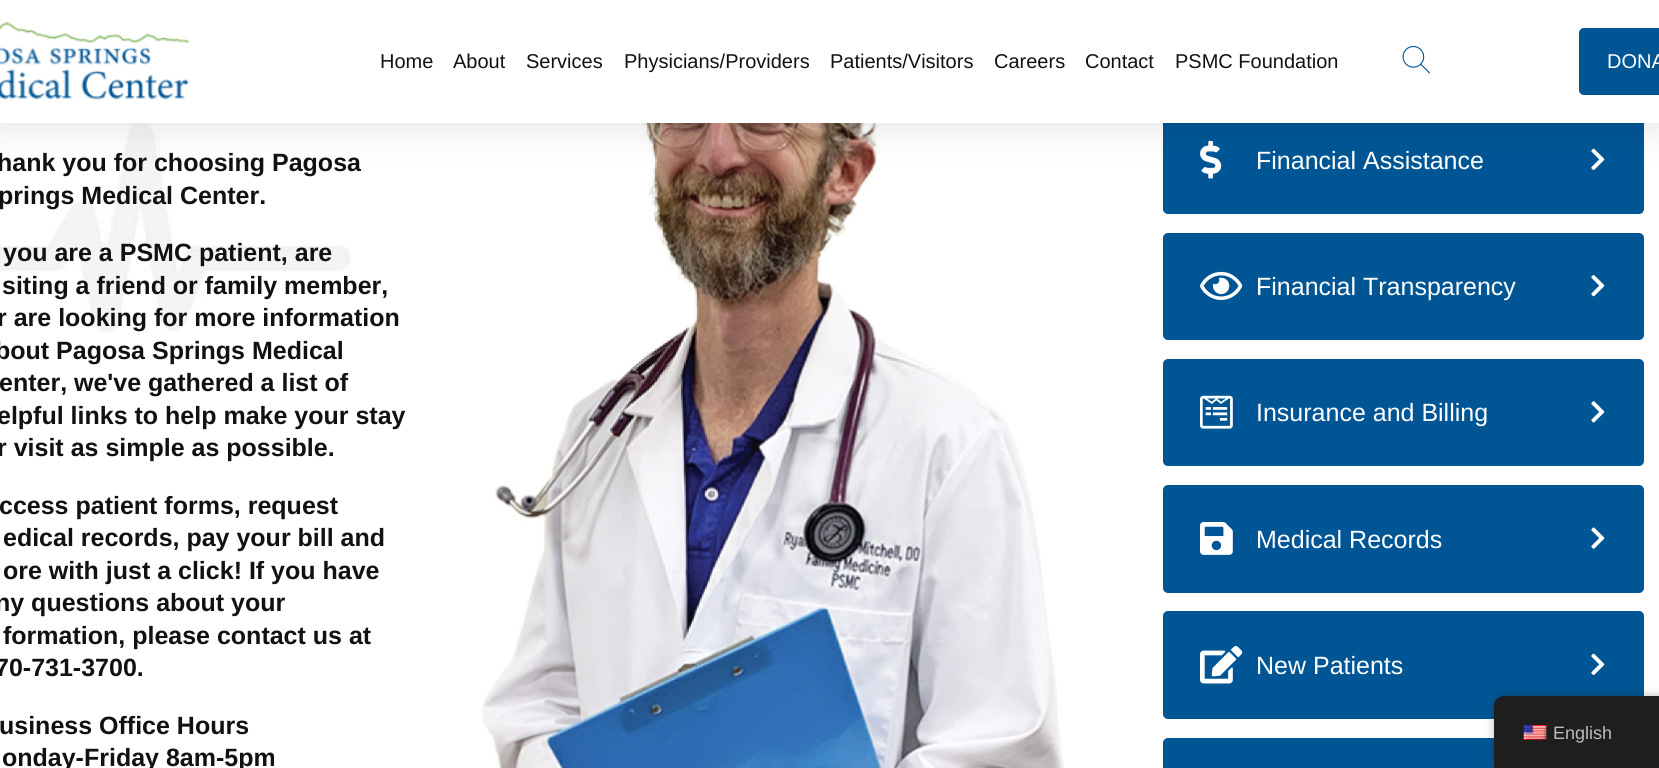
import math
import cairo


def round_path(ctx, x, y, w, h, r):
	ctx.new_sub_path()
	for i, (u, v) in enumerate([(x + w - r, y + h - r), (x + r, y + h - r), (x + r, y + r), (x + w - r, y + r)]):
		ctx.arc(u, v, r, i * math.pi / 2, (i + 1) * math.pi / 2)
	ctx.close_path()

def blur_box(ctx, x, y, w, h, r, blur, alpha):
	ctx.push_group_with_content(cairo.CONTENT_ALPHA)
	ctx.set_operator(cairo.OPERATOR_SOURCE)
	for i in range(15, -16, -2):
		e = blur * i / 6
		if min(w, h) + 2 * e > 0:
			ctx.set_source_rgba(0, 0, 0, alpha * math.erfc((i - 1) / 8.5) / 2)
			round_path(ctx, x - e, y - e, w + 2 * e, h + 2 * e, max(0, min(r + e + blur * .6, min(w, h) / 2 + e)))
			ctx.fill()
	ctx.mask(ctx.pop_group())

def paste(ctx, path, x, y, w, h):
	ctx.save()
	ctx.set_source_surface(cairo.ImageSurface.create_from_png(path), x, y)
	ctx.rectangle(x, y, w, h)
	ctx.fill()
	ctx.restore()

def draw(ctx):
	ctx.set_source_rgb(1, 1, 1)
	ctx.paint()
	paste(ctx, 'media/3.png', 0, 123, 351, 210)
	paste(ctx, 'media/4.png', 482, 123, 582, 645)
	ctx.set_source_rgb(0, 0.337, 0.584)
	round_path(ctx, 1163, 106, 481, 108, 5)
	ctx.fill()
	paste(ctx, 'media/5.png', 1200, 140, 22, 39)
	paste(ctx, 'media/6.png', 1591, 148, 14, 22)
	ctx.set_source_rgb(0, 0, 0)
	blur_box(ctx, 0, 6, 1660, 123, 0, 19, 0.1)
	ctx.set_source_rgb(1, 1, 1)
	ctx.rectangle(0, 0, 1659, 123)
	ctx.fill()
	paste(ctx, 'media/1.png', 0, 22, 189, 78)
	ctx.select_font_face('Liberation Sans')
	ctx.set_font_size(20)
	ctx.set_source_rgb(0.067, 0.067, 0.067)
	for x, y, s in [
		(380, 68, 'Home'),
		(453, 68, 'About'),
		(526, 68, 'Services'),
		(624, 68, 'Physicians/Providers'),
		(830, 68, 'Patients/Visitors'),
		(994, 68, 'Careers'),
		(1085, 68, 'Contact'),
		(1175, 68, 'PSMC Foundation'),
	]:
		ctx.move_to(x, y)
		ctx.show_text(s)
	paste(ctx, 'media/2.png', 1402, 45, 28, 29)
	ctx.set_source_rgb(0, 0.337, 0.584)
	round_path(ctx, 1579, 28, 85, 67, 5)
	ctx.fill()
	ctx.set_source_rgb(1, 1, 1)
	ctx.move_to(1607, 68)
	ctx.show_text('DONA')
	ctx.select_font_face('Liberation Sans', cairo.FONT_SLANT_NORMAL, cairo.FONT_WEIGHT_BOLD)
	ctx.set_font_size(25)
	ctx.set_source_rgb(0.067, 0.067, 0.067)
	for x, y, s in [
		(-3, 171, 'hank you for choosing Pagosa'),
		(-2, 204, 'prings Medical Center.'),
		(3, 261, 'you are a PSMC patient, are'),
		(2, 294, 'siting a friend or family member,'),
		(-3, 326, 'r are looking for more information'),
		(-5, 359, 'bout Pagosa Springs Medical'),
		(-1, 391, 'enter, we\'ve gathered a list of'),
		(-3, 424, 'elpful links to help make your stay'),
		(-3, 456, 'r visit as simple as possible.'),
		(-1, 514, 'ccess patient forms, request'),
		(3, 546, 'edical records, pay your bill and'),
		(3, 579, 'ore with just a click! If you have'),
		(-5, 611, 'ny questions about your'),
		(3, 644, 'formation, please contact us at'),
		(-5, 676, '70-731-3700.'),
		(-1, 734, 'usiness Office Hours'),
		(2, 766, 'onday-Friday 8am-5pm'),
	]:
		ctx.move_to(x, y)
		ctx.show_text(s)
	ctx.select_font_face('Liberation Sans')
	ctx.set_source_rgb(1, 1, 1)
	ctx.move_to(1256, 169)
	ctx.show_text('Financial Assistance')
	ctx.set_source_rgb(0, 0.337, 0.584)
	round_path(ctx, 1163, 233, 481, 107, 5)
	ctx.fill()
	paste(ctx, 'media/7.png', 1200, 271, 43, 29)
	ctx.set_source_rgb(1, 1, 1)
	ctx.move_to(1256, 295)
	ctx.show_text('Financial Transparency')
	paste(ctx, 'media/8.png', 1591, 275, 14, 22)
	ctx.set_source_rgb(0, 0.337, 0.584)
	round_path(ctx, 1163, 359, 481, 107, 5)
	ctx.fill()
	paste(ctx, 'media/9.png', 1200, 395, 33, 34)
	ctx.set_source_rgb(1, 1, 1)
	ctx.move_to(1256, 421)
	ctx.show_text('Insurance and Billing')
	paste(ctx, 'media/10.png', 1591, 401, 14, 22)
	ctx.set_source_rgb(0, 0.337, 0.584)
	round_path(ctx, 1163, 485, 481, 108, 5)
	ctx.fill()
	paste(ctx, 'media/11.png', 1200, 522, 33, 33)
	ctx.set_source_rgb(1, 1, 1)
	ctx.move_to(1256, 548)
	ctx.show_text('Medical Records')
	paste(ctx, 'media/12.png', 1591, 527, 14, 22)
	ctx.set_source_rgb(0, 0.337, 0.584)
	round_path(ctx, 1163, 611, 481, 108, 5)
	ctx.fill()
	paste(ctx, 'media/13.png', 1200, 646, 43, 38)
	ctx.set_source_rgb(1, 1, 1)
	ctx.move_to(1256, 674)
	ctx.show_text('New Patients')
	paste(ctx, 'media/6.png', 1591, 653, 14, 22)
	ctx.set_source_rgb(0, 0.337, 0.584)
	round_path(ctx, 1163, 738, 481, 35, 5)
	ctx.fill()
	ctx.set_source_rgb(0, 0, 0)
	blur_box(ctx, 1494, 696, 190, 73, 10, 5, 0.25)
	ctx.set_source_rgb(0.118, 0.118, 0.118)
	ctx.new_path()
	ctx.move_to(1504, 696)
	ctx.line_to(1659, 696)
	ctx.curve_to(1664.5, 696, 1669, 700.5, 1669, 706)
	ctx.line_to(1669, 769)
	ctx.line_to(1494, 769)
	ctx.line_to(1494, 706)
	ctx.curve_to(1494, 700.5, 1498.5, 696, 1504, 696)
	ctx.close_path()
	ctx.fill()
	paste(ctx, 'media/14.png', 1523, 725, 24, 15)
	ctx.set_font_size(18)
	ctx.set_source_rgb(0.741, 0.741, 0.741)
	ctx.move_to(1553, 739)
	ctx.show_text('English')


surface = cairo.ImageSurface(cairo.FORMAT_RGB24, 1659, 768)
ctx = cairo.Context(surface)
options = cairo.FontOptions()
options.set_hint_metrics(cairo.HINT_METRICS_OFF)
options.set_hint_style(cairo.HINT_STYLE_NONE)
ctx.set_font_options(options)
ctx.set_miter_limit(4)
draw(ctx)
surface.write_to_png('image.png')
